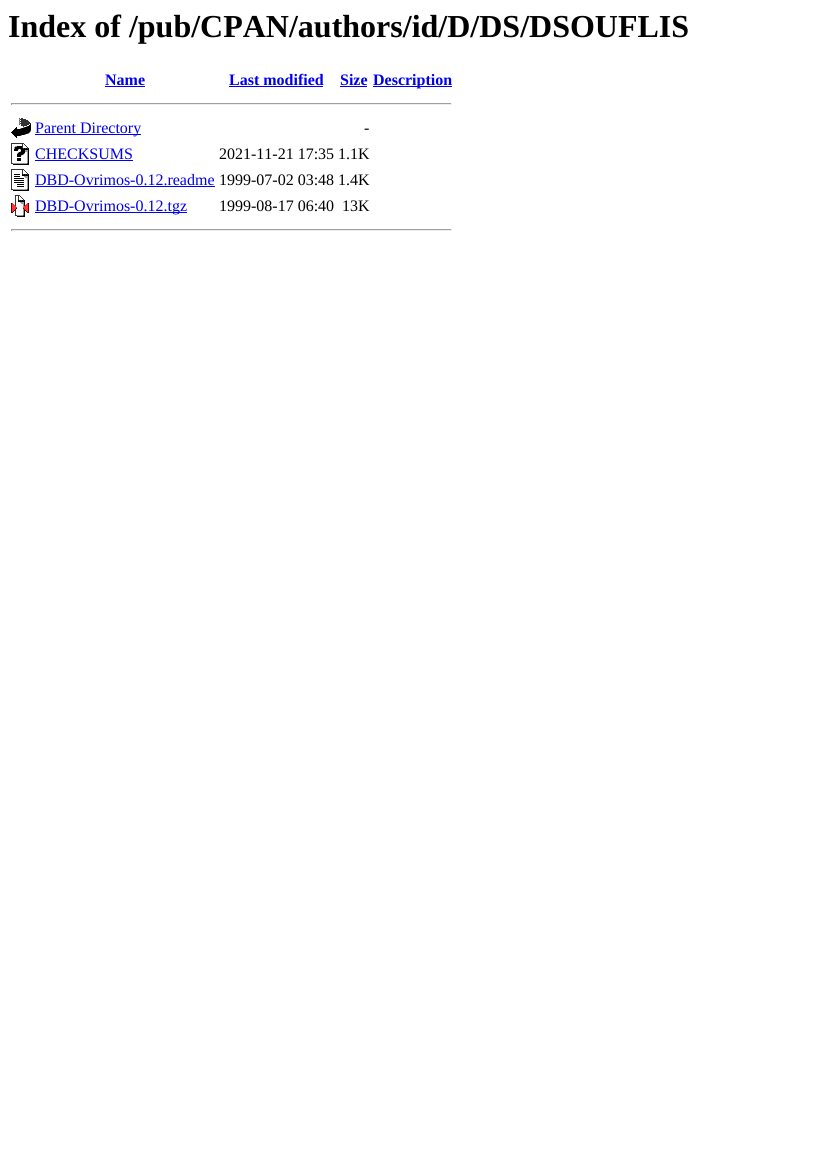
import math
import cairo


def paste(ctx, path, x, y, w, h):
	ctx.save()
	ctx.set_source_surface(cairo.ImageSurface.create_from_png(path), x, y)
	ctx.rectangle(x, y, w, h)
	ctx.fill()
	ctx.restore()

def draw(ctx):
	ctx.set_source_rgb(1, 1, 1)
	ctx.paint()
	ctx.select_font_face('Liberation Serif', cairo.FONT_SLANT_NORMAL, cairo.FONT_WEIGHT_BOLD)
	ctx.set_font_size(32)
	ctx.set_source_rgb(0, 0, 0)
	ctx.move_to(8, 37)
	ctx.show_text('Index of /pub/CPAN/authors/id/D/DS/DSOUFLIS')
	ctx.set_font_size(16)
	ctx.set_source_rgb(0, 0, 0.933)
	ctx.move_to(105, 85)
	ctx.show_text('Name')
	ctx.rectangle(105, 86, 40, 1)
	ctx.fill()
	ctx.move_to(229, 85)
	ctx.show_text('Last modified')
	ctx.rectangle(229, 86, 94, 1)
	ctx.fill()
	ctx.move_to(340, 85)
	ctx.show_text('Size')
	ctx.rectangle(340, 86, 27, 1)
	ctx.fill()
	ctx.rectangle(373, 86, 79, 1)
	ctx.fill()
	ctx.move_to(373, 85)
	ctx.show_text('Description')
	ctx.set_source_rgb(0.624, 0.624, 0.624)
	ctx.rectangle(11, 103, 441, 1)
	ctx.fill()
	ctx.set_source_rgb(0.933, 0.933, 0.933)
	ctx.rectangle(451, 103, 1, 2)
	ctx.rectangle(11, 104, 441, 1)
	ctx.fill()
	ctx.set_source_rgb(0.624, 0.624, 0.624)
	ctx.rectangle(11, 103, 1, 2)
	ctx.fill()
	paste(ctx, 'media/1.png', 11, 118, 20, 20)
	ctx.set_source_rgb(0, 0, 0.933)
	ctx.rectangle(35, 134, 106, 1)
	ctx.fill()
	ctx.select_font_face('Liberation Serif')
	ctx.move_to(35, 133)
	ctx.show_text('Parent Directory')
	ctx.set_source_rgb(0, 0, 0)
	ctx.move_to(364, 133)
	ctx.show_text('-')
	paste(ctx, 'media/2.png', 11, 143, 18, 22)
	ctx.set_source_rgb(0, 0, 0.933)
	ctx.move_to(35, 159)
	ctx.show_text('CHECKSUMS')
	ctx.rectangle(35, 160, 98, 1)
	ctx.fill()
	ctx.set_source_rgb(0, 0, 0)
	ctx.move_to(219, 159)
	ctx.show_text('2021-11-21 17:35 1.1K')
	paste(ctx, 'media/3.png', 11, 169, 18, 22)
	ctx.set_source_rgb(0, 0, 0.933)
	ctx.move_to(35, 185)
	ctx.show_text('DBD-Ovrimos-0.12.readme')
	ctx.rectangle(35, 186, 180, 1)
	ctx.fill()
	ctx.set_source_rgb(0, 0, 0)
	ctx.move_to(219, 185)
	ctx.show_text('1999-07-02 03:48 1.4K')
	paste(ctx, 'media/4.png', 11, 195, 18, 22)
	ctx.set_source_rgb(0, 0, 0.933)
	ctx.rectangle(35, 212, 152, 1)
	ctx.fill()
	ctx.move_to(35, 211)
	ctx.show_text('DBD-Ovrimos-0.12.tgz')
	ctx.set_source_rgb(0, 0, 0)
	ctx.move_to(219, 211)
	ctx.show_text('1999-08-17 06:40')
	ctx.move_to(342, 211)
	ctx.show_text('13K')
	ctx.set_source_rgb(0.624, 0.624, 0.624)
	ctx.rectangle(11, 229, 441, 1)
	ctx.fill()
	ctx.set_source_rgb(0.933, 0.933, 0.933)
	ctx.rectangle(451, 229, 1, 2)
	ctx.rectangle(11, 230, 441, 1)
	ctx.fill()
	ctx.set_source_rgb(0.624, 0.624, 0.624)
	ctx.rectangle(11, 229, 1, 2)
	ctx.fill()


surface = cairo.ImageSurface(cairo.FORMAT_RGB24, 836, 1164)
ctx = cairo.Context(surface)
options = cairo.FontOptions()
options.set_hint_metrics(cairo.HINT_METRICS_OFF)
options.set_hint_style(cairo.HINT_STYLE_NONE)
ctx.set_font_options(options)
ctx.set_miter_limit(4)
draw(ctx)
surface.write_to_png('image.png')
